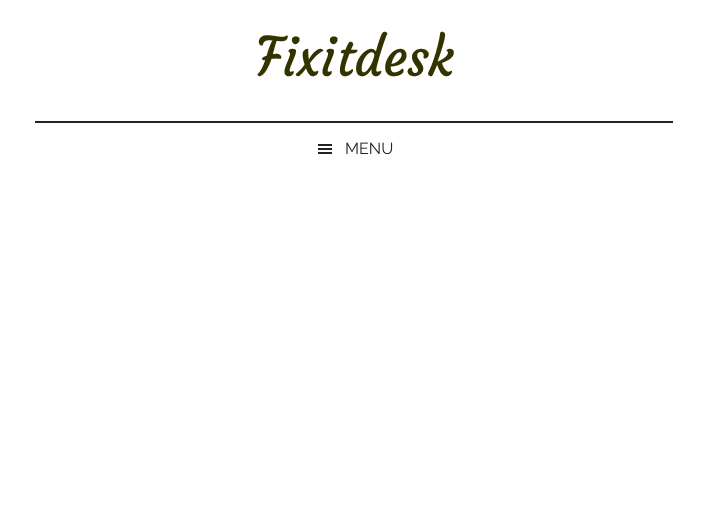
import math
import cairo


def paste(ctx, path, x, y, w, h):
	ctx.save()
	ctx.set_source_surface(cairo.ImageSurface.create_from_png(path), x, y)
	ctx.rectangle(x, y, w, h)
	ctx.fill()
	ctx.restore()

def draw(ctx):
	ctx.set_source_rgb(1, 1, 1)
	ctx.paint()
	ctx.set_source_rgb(0.133, 0.133, 0.133)
	ctx.rectangle(35, 121, 638, 2)
	ctx.fill()
	paste(ctx, 'media/1.png', 257, 31, 197, 46)
	paste(ctx, 'media/2.png', 318, 144, 14, 10)
	ctx.select_font_face('Raleway Thin')
	ctx.set_font_size(16)
	ctx.move_to(345, 154)
	ctx.show_text('MENU')


surface = cairo.ImageSurface(cairo.FORMAT_RGB24, 708, 512)
ctx = cairo.Context(surface)
options = cairo.FontOptions()
options.set_hint_metrics(cairo.HINT_METRICS_OFF)
options.set_hint_style(cairo.HINT_STYLE_NONE)
ctx.set_font_options(options)
ctx.set_miter_limit(4)
draw(ctx)
surface.write_to_png('image.png')
